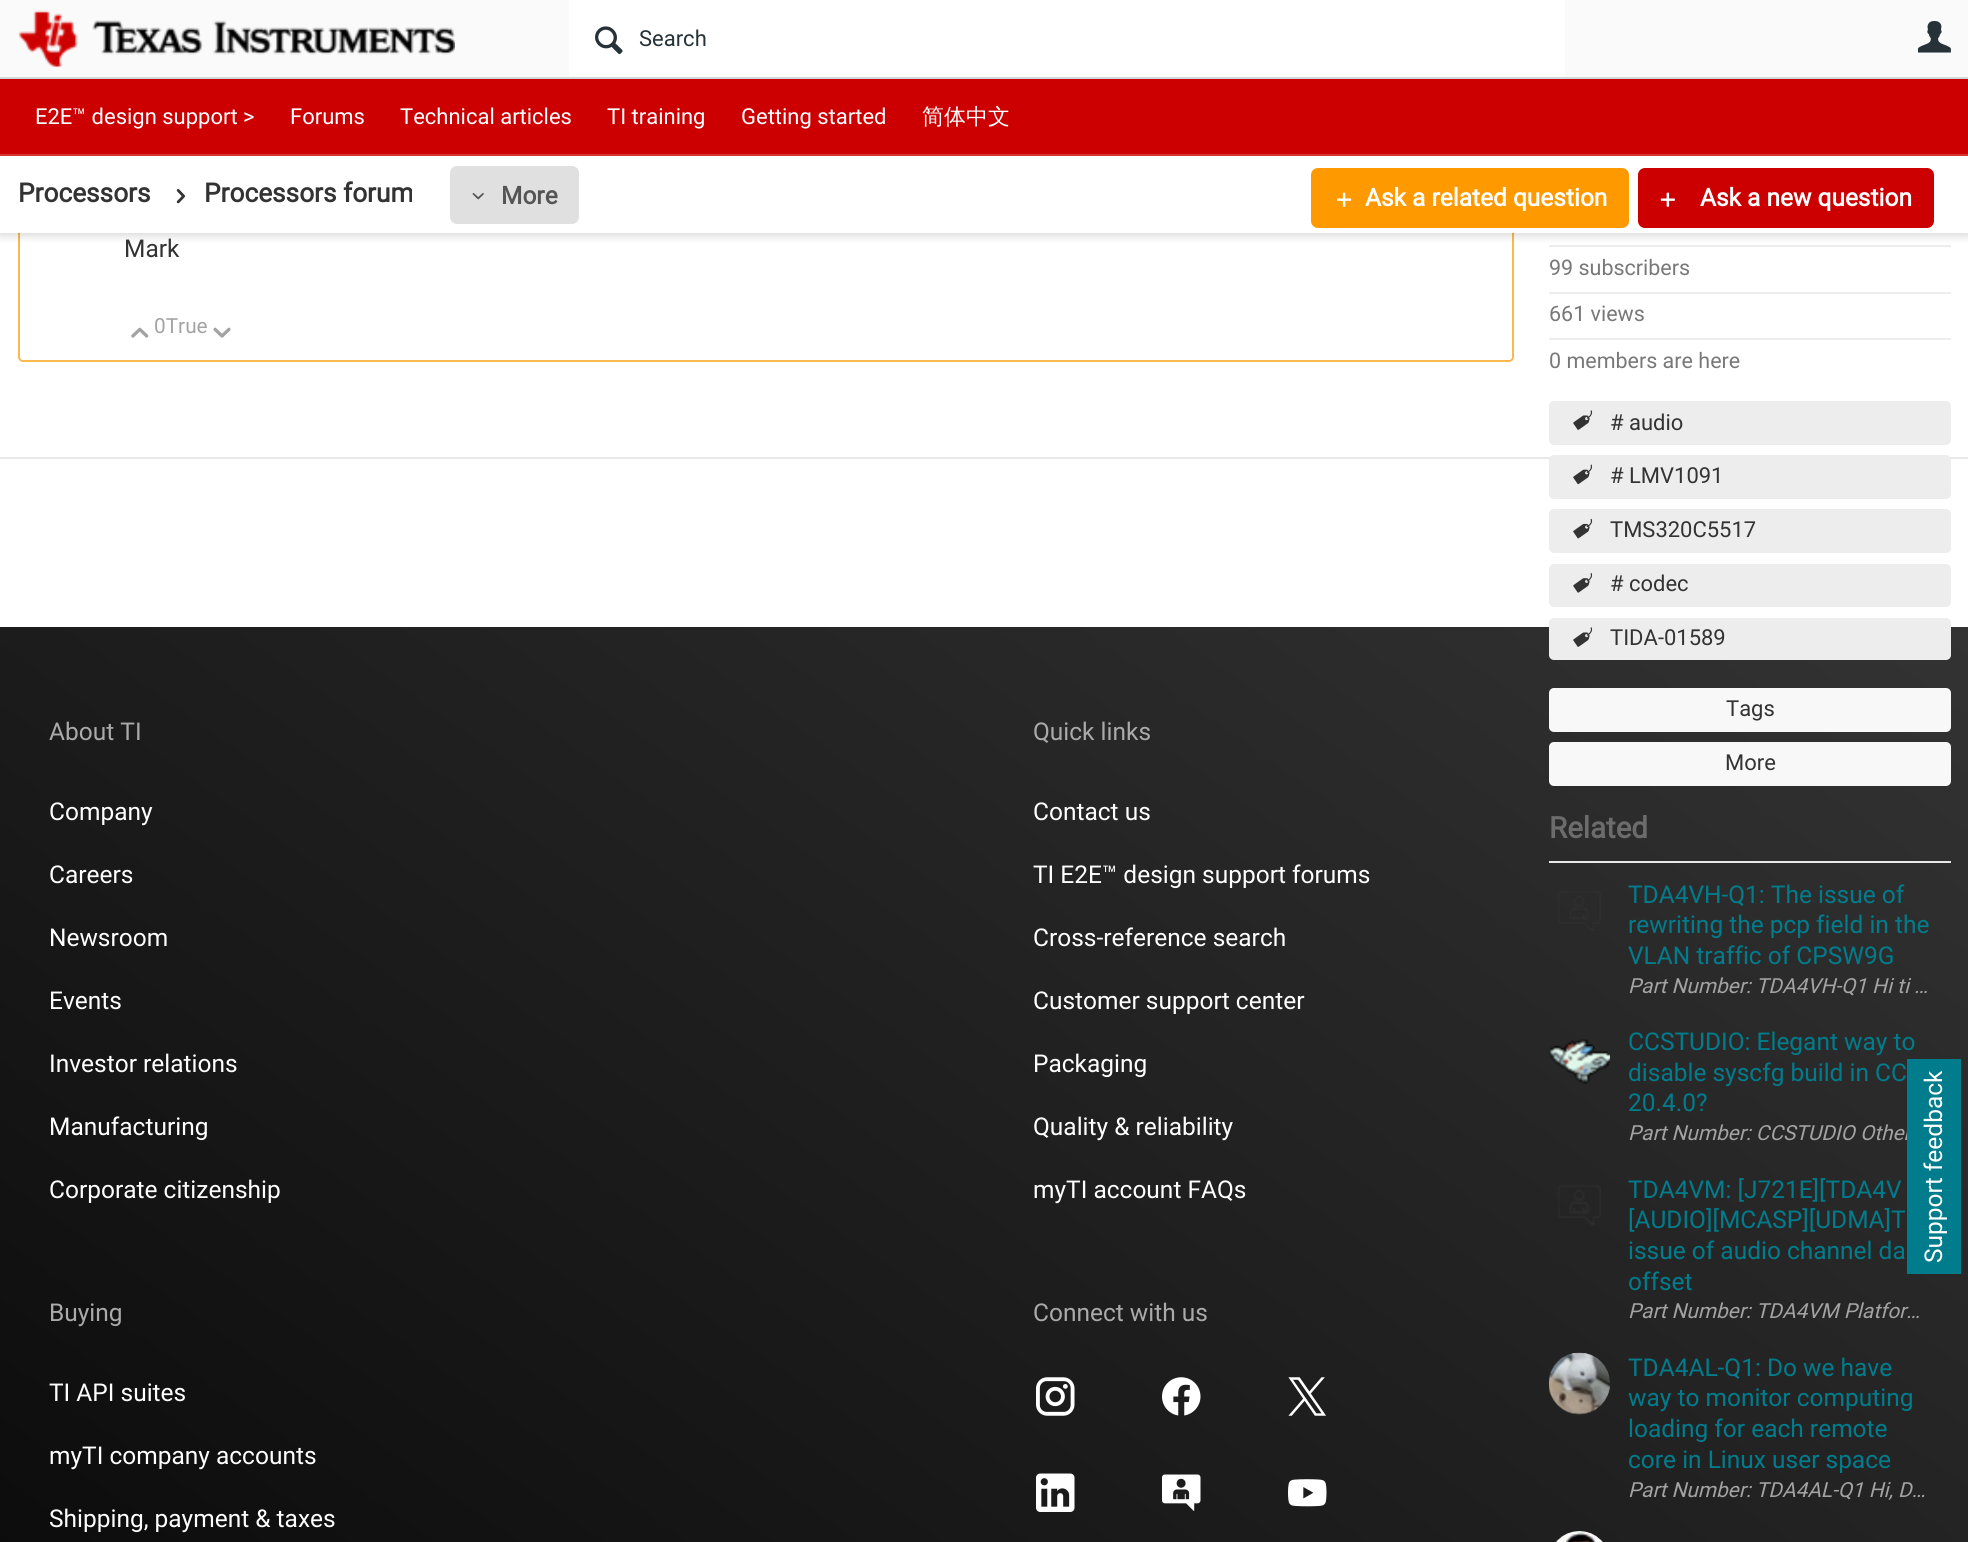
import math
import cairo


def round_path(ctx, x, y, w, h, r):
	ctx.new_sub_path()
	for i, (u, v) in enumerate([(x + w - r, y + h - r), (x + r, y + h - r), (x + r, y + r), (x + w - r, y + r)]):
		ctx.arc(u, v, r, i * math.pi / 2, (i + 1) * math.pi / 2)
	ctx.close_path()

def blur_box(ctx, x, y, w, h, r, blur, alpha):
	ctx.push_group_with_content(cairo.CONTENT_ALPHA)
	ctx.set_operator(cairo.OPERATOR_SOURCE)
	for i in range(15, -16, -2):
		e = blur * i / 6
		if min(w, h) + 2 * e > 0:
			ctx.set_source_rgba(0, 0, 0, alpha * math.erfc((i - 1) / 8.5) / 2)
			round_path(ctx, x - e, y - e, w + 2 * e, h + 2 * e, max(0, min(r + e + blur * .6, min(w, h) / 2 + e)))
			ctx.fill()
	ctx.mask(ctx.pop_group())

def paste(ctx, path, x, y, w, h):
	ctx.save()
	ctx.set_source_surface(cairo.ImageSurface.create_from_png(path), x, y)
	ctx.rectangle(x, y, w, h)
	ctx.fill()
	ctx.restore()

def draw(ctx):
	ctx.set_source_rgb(1, 1, 1)
	ctx.paint()
	round_path(ctx, 19, -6, 1494, 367, 4)
	ctx.set_source_rgb(0.98, 0.725, 0.302)
	ctx.stroke()
	ctx.set_source_rgb(0.929, 0.929, 0.929)
	ctx.rectangle(1549, 245, 402, 2)
	ctx.fill()
	ctx.set_source_rgb(0, 0, 0)
	blur_box(ctx, 0, 4, 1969, 232, 0, 4.5, 0.15)
	ctx.set_source_rgb(1, 1, 1)
	ctx.rectangle(0, 156, 1968, 77)
	ctx.fill()
	ctx.set_source_rgb(0.98, 0.98, 0.98)
	ctx.rectangle(0, 0, 1968, 77)
	ctx.fill()
	ctx.set_source_rgb(0.812, 0.847, 0.863)
	ctx.rectangle(0, 77, 1968, 2)
	ctx.fill()
	paste(ctx, 'media/1.png', 18, 10, 437, 57)
	ctx.set_source_rgb(1, 1, 1)
	ctx.rectangle(569, 0, 996, 77)
	ctx.fill()
	paste(ctx, 'media/2.png', 595, 26, 28, 29)
	ctx.select_font_face('Roboto')
	ctx.set_font_size(22)
	ctx.set_source_rgb(0.149, 0.196, 0.22)
	ctx.move_to(639, 46)
	ctx.show_text('Search')
	paste(ctx, 'media/3.png', 1918, 21, 33, 32)
	ctx.set_source_rgb(0.8, 0, 0)
	ctx.rectangle(0, 79, 1968, 75)
	ctx.fill()
	ctx.set_source_rgb(0.839, 0.2, 0.2)
	ctx.rectangle(0, 154, 1968, 2)
	ctx.fill()
	ctx.set_source_rgb(1, 1, 1)
	for x, y, s in [
		(35, 124, 'E2E™ design support >'),
		(290, 124, 'Forums'),
		(400, 124, 'Technical articles'),
		(607, 124, 'TI training'),
		(741, 124, 'Getting started'),
	]:
		ctx.move_to(x, y)
		ctx.show_text(s)
	ctx.select_font_face('WenQuanYi Zen Hei Medium')
	ctx.move_to(922, 124)
	ctx.show_text('简体中文')
	ctx.select_font_face('Roboto', cairo.FONT_SLANT_NORMAL, cairo.FONT_WEIGHT_BOLD)
	ctx.set_font_size(26.25)
	ctx.set_source_rgb(0.2, 0.2, 0.2)
	ctx.move_to(18, 202)
	ctx.show_text('Processors')
	paste(ctx, 'media/4.png', 176, 189, 10, 15)
	ctx.move_to(204, 202)
	ctx.show_text('Processors forum')
	ctx.set_source_rgb(0.878, 0.878, 0.878)
	round_path(ctx, 450, 166, 129, 58, 7)
	ctx.fill()
	paste(ctx, 'media/5.png', 472, 193, 12, 7)
	ctx.set_font_size(24.5)
	ctx.set_source_rgb(0.333, 0.333, 0.333)
	ctx.move_to(501, 204)
	ctx.show_text('More')
	ctx.set_source_rgb(1, 0.6, 0)
	round_path(ctx, 1311, 168, 318, 60, 7)
	ctx.fill()
	paste(ctx, 'media/6.png', 1337, 192, 15, 15)
	ctx.set_source_rgb(1, 1, 1)
	ctx.move_to(1365, 206)
	ctx.show_text('Ask a related question')
	ctx.set_source_rgb(0.8, 0, 0)
	round_path(ctx, 1638, 168, 296, 60, 7)
	ctx.fill()
	paste(ctx, 'media/7.png', 1660, 192, 15, 15)
	ctx.set_source_rgb(1, 1, 1)
	ctx.move_to(1700, 206)
	ctx.show_text('Ask a new question')
	ctx.select_font_face('Roboto')
	ctx.set_source_rgb(0.2, 0.2, 0.2)
	ctx.move_to(124, 257)
	ctx.show_text('Mark')
	paste(ctx, 'media/8.png', 131, 327, 18, 11)
	ctx.set_font_size(20.8)
	ctx.set_source_rgb(0.639, 0.639, 0.639)
	ctx.move_to(154, 333)
	ctx.show_text('0True')
	paste(ctx, 'media/9.png', 213, 327, 18, 11)
	ctx.set_source_rgb(0.929, 0.929, 0.929)
	ctx.rectangle(1549, 292, 402, 2)
	ctx.fill()
	ctx.set_font_size(21.5)
	ctx.set_source_rgb(0.471, 0.471, 0.471)
	ctx.move_to(1549, 275)
	ctx.show_text('99 subscribers')
	ctx.set_source_rgb(0.929, 0.929, 0.929)
	ctx.rectangle(1549, 338, 402, 2)
	ctx.fill()
	ctx.set_source_rgb(0.471, 0.471, 0.471)
	ctx.move_to(1549, 321)
	ctx.show_text('661 views')
	ctx.move_to(1549, 368)
	ctx.show_text('0 members are here')
	ctx.set_source_rgb(0.929, 0.929, 0.929)
	round_path(ctx, 1549, 401, 402, 44, 5)
	ctx.fill()
	paste(ctx, 'media/10.png', 1573, 410, 20, 20)
	ctx.set_font_size(22)
	ctx.set_source_rgb(0.2, 0.2, 0.2)
	ctx.move_to(1610, 430)
	ctx.show_text('# audio')
	ctx.set_source_rgb(0.914, 0.914, 0.914)
	ctx.rectangle(0, 457, 1968, 2)
	ctx.fill()
	ctx.set_source_rgb(0.929, 0.929, 0.929)
	round_path(ctx, 1549, 455, 402, 44, 5)
	ctx.fill()
	paste(ctx, 'media/11.png', 1573, 464, 20, 21)
	ctx.set_source_rgb(0.2, 0.2, 0.2)
	ctx.move_to(1610, 483)
	ctx.show_text('# LMV1091')
	ctx.set_source_rgb(0.929, 0.929, 0.929)
	round_path(ctx, 1549, 509, 402, 44, 5)
	ctx.fill()
	paste(ctx, 'media/12.png', 1573, 518, 20, 21)
	ctx.set_source_rgb(0.2, 0.2, 0.2)
	ctx.move_to(1610, 537)
	ctx.show_text('TMS320C5517')
	ctx.set_source_rgb(0.929, 0.929, 0.929)
	round_path(ctx, 1549, 564, 402, 43, 5)
	ctx.fill()
	paste(ctx, 'media/13.png', 1573, 573, 20, 20)
	ctx.set_source_rgb(0.2, 0.2, 0.2)
	ctx.move_to(1610, 591)
	ctx.show_text('# codec')
	gradient = cairo.LinearGradient(273, 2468, 1696, 435)
	gradient.add_color_stop_rgba(0, 0, 0, 0, 1)
	gradient.add_color_stop_rgba(1, 0.2, 0.2, 0.2, 1)
	ctx.set_source(gradient)
	ctx.rectangle(0, 627, 1968, 915)
	ctx.fill()
	ctx.set_source_rgb(0.929, 0.929, 0.929)
	round_path(ctx, 1549, 618, 402, 42, 5)
	ctx.fill()
	paste(ctx, 'media/10.png', 1573, 627, 20, 20)
	ctx.set_source_rgb(0.2, 0.2, 0.2)
	ctx.move_to(1610, 645)
	ctx.show_text('TIDA-01589')
	ctx.set_source_rgb(0.969, 0.969, 0.969)
	round_path(ctx, 1549, 688, 402, 44, 5)
	ctx.fill()
	ctx.set_source_rgb(0.2, 0.2, 0.2)
	ctx.move_to(1726, 716)
	ctx.show_text('Tags')
	ctx.set_source_rgb(0.969, 0.969, 0.969)
	round_path(ctx, 1549, 742, 402, 44, 5)
	ctx.fill()
	ctx.set_source_rgb(0.2, 0.2, 0.2)
	ctx.move_to(1725, 770)
	ctx.show_text('More')
	ctx.set_source_rgb(0.914, 0.914, 0.914)
	ctx.rectangle(1549, 861, 402, 2)
	ctx.fill()
	ctx.select_font_face('Roboto', cairo.FONT_SLANT_NORMAL, cairo.FONT_WEIGHT_BOLD)
	ctx.set_font_size(29.5)
	ctx.set_source_rgb(0.424, 0.424, 0.424)
	ctx.move_to(1549, 838)
	ctx.show_text('Related')
	ctx.select_font_face('Roboto')
	ctx.set_font_size(24.5)
	ctx.set_source_rgb(0, 0.486, 0.549)
	for x, y, s in [
		(1628, 903, 'TDA4VH-Q1: The issue of'),
		(1628, 933, 'rewriting the pcp field in the'),
		(1628, 964, 'VLAN traffic of CPSW9G'),
	]:
		ctx.move_to(x, y)
		ctx.show_text(s)
	paste(ctx, 'media/14.png', 1558, 891, 43, 40)
	ctx.select_font_face('Roboto', cairo.FONT_SLANT_ITALIC)
	ctx.set_font_size(20.8)
	ctx.set_source_rgb(0.639, 0.639, 0.639)
	ctx.move_to(1628, 993)
	ctx.show_text('Part Number: TDA4VH-Q1 Hi ti …')
	ctx.select_font_face('Roboto')
	ctx.set_font_size(24.5)
	ctx.set_source_rgb(0, 0.486, 0.549)
	for x, y, s in [
		(1628, 1050, 'CCSTUDIO: Elegant way to'),
		(1628, 1081, 'disable syscfg build in CC'),
		(1628, 1111, '20.4.0?'),
	]:
		ctx.move_to(x, y)
		ctx.show_text(s)
	paste(ctx, 'media/15.png', 1549, 1039, 61, 45)
	paste(ctx, 'media/16.png', 1550, 1040, 60, 44)
	ctx.select_font_face('Roboto', cairo.FONT_SLANT_ITALIC)
	ctx.set_font_size(20.8)
	ctx.set_source_rgb(0.639, 0.639, 0.639)
	ctx.move_to(1628, 1140)
	ctx.show_text('Part Number: CCSTUDIO Other')
	ctx.select_font_face('Roboto')
	ctx.set_font_size(24.5)
	ctx.set_source_rgb(0, 0.486, 0.549)
	for x, y, s in [
		(1628, 1198, 'TDA4VM: [J721E][TDA4V'),
		(1628, 1228, '[AUDIO][MCASP][UDMA]T'),
		(1628, 1259, 'issue of audio channel da'),
		(1628, 1290, 'offset'),
	]:
		ctx.move_to(x, y)
		ctx.show_text(s)
	paste(ctx, 'media/17.png', 1558, 1185, 43, 41)
	ctx.select_font_face('Roboto', cairo.FONT_SLANT_ITALIC)
	ctx.set_font_size(20.8)
	ctx.set_source_rgb(0.639, 0.639, 0.639)
	ctx.move_to(1628, 1318)
	ctx.show_text('Part Number: TDA4VM Platfor…')
	ctx.select_font_face('Roboto')
	ctx.set_font_size(24.5)
	ctx.set_source_rgb(0, 0.486, 0.549)
	for x, y, s in [
		(1628, 1376, 'TDA4AL-Q1: Do we have'),
		(1628, 1406, 'way to monitor computing'),
		(1628, 1437, 'loading for each remote'),
		(1628, 1468, 'core in Linux user space'),
	]:
		ctx.move_to(x, y)
		ctx.show_text(s)
	paste(ctx, 'media/18.png', 1549, 1352, 61, 63)
	paste(ctx, 'media/19.png', 1549, 1352, 61, 63)
	ctx.select_font_face('Roboto', cairo.FONT_SLANT_ITALIC)
	ctx.set_font_size(20.8)
	ctx.set_source_rgb(0.639, 0.639, 0.639)
	ctx.move_to(1628, 1497)
	ctx.show_text('Part Number: TDA4AL-Q1 Hi, D…')
	paste(ctx, 'media/20.png', 1556, 1531, 47, 11)
	paste(ctx, 'media/21.png', 1556, 1531, 47, 11)
	ctx.set_source_rgb(0, 0.486, 0.549)
	ctx.rectangle(1907, 1059, 54, 215)
	ctx.fill()
	ctx.select_font_face('Roboto')
	ctx.set_font_size(24.5)
	ctx.set_source_rgb(1, 1, 1)
	ctx.save()
	ctx.translate(1942, 1263)
	ctx.rotate(-90 * math.pi / 180)
	ctx.move_to(0, 0)
	ctx.show_text('Support feedback')
	ctx.restore()
	ctx.set_source_rgb(0.667, 0.667, 0.667)
	ctx.move_to(49, 740)
	ctx.show_text('About TI')
	ctx.set_source_rgb(1, 1, 1)
	for x, y, s in [
		(49, 820, 'Company'),
		(49, 883, 'Careers'),
		(49, 946, 'Newsroom'),
		(49, 1009, 'Events'),
		(49, 1072, 'Investor relations'),
		(49, 1135, 'Manufacturing'),
		(49, 1198, 'Corporate citizenship'),
	]:
		ctx.move_to(x, y)
		ctx.show_text(s)
	ctx.set_source_rgb(0.667, 0.667, 0.667)
	ctx.move_to(1033, 740)
	ctx.show_text('Quick links')
	ctx.set_source_rgb(1, 1, 1)
	for x, y, s in [
		(1033, 820, 'Contact us'),
		(1033, 883, 'TI E2E™ design support forums'),
		(1033, 946, 'Cross-reference search'),
		(1033, 1009, 'Customer support center'),
		(1033, 1072, 'Packaging'),
		(1033, 1135, 'Quality & reliability'),
		(1033, 1198, 'myTI account FAQs'),
	]:
		ctx.move_to(x, y)
		ctx.show_text(s)
	ctx.set_source_rgb(0.667, 0.667, 0.667)
	ctx.move_to(49, 1321)
	ctx.show_text('Buying')
	ctx.set_source_rgb(1, 1, 1)
	for x, y, s in [
		(49, 1401, 'TI API suites'),
		(49, 1464, 'myTI company accounts'),
		(49, 1527, 'Shipping, payment & taxes'),
	]:
		ctx.move_to(x, y)
		ctx.show_text(s)
	ctx.set_source_rgb(0.667, 0.667, 0.667)
	ctx.move_to(1033, 1321)
	ctx.show_text('Connect with us')
	paste(ctx, 'media/22.png', 1036, 1377, 39, 39)
	paste(ctx, 'media/23.png', 1162, 1377, 39, 39)
	paste(ctx, 'media/24.png', 1288, 1377, 38, 39)
	paste(ctx, 'media/25.png', 1036, 1473, 39, 39)
	paste(ctx, 'media/26.png', 1162, 1474, 39, 37)
	paste(ctx, 'media/27.png', 1288, 1479, 39, 28)


surface = cairo.ImageSurface(cairo.FORMAT_RGB24, 1968, 1542)
ctx = cairo.Context(surface)
options = cairo.FontOptions()
options.set_hint_metrics(cairo.HINT_METRICS_OFF)
options.set_hint_style(cairo.HINT_STYLE_NONE)
ctx.set_font_options(options)
ctx.set_miter_limit(4)
draw(ctx)
surface.write_to_png('image.png')
